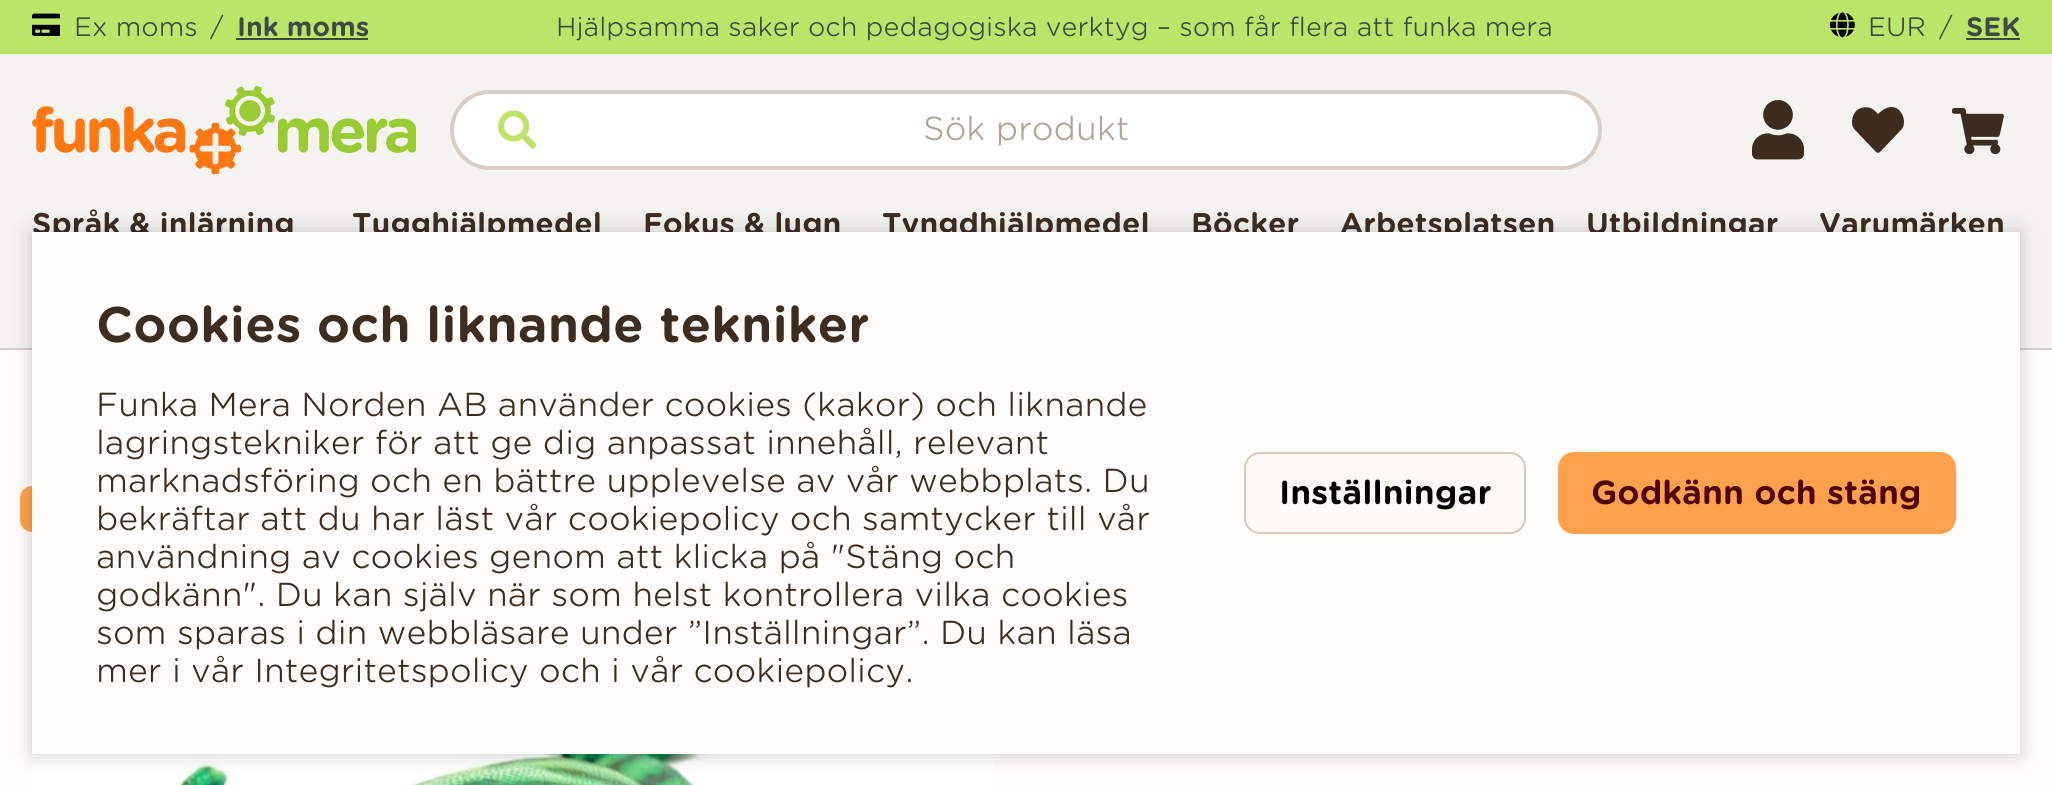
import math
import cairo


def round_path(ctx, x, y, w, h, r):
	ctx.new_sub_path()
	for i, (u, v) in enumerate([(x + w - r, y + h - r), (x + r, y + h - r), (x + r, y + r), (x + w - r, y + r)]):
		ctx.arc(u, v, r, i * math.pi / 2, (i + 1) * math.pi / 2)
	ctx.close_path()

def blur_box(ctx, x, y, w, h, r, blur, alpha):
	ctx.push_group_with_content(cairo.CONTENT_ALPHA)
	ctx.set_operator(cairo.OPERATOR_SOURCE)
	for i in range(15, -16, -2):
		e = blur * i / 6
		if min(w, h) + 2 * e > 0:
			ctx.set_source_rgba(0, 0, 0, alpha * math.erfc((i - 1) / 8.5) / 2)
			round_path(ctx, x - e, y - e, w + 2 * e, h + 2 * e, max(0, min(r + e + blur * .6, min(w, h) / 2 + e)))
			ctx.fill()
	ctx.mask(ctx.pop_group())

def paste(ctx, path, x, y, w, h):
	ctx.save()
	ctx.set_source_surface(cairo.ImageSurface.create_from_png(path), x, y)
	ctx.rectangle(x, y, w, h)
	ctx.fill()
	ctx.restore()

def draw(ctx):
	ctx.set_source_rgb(1, 0.988, 0.973)
	ctx.paint()
	ctx.set_source_rgb(0.957, 0.953, 0.937)
	ctx.rectangle(0, 54, 2052, 294)
	ctx.fill()
	ctx.set_source_rgb(0.847, 0.808, 0.776)
	ctx.rectangle(0, 348, 2052, 2)
	ctx.fill()
	ctx.set_source_rgb(0.733, 0.894, 0.412)
	ctx.rectangle(0, 0, 2052, 54)
	ctx.fill()
	paste(ctx, 'media/1.png', 32, 13, 28, 23)
	ctx.select_font_face('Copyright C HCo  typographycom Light')
	ctx.set_font_size(25.6)
	ctx.set_source_rgb(0.243, 0.282, 0.271)
	ctx.move_to(74, 36)
	ctx.show_text('Ex moms')
	ctx.move_to(210, 36)
	ctx.show_text('/')
	ctx.select_font_face('Copyright C HCo  typographycom')
	ctx.move_to(237, 36)
	ctx.show_text('Ink moms')
	ctx.rectangle(236, 38, 132, 2)
	ctx.fill()
	ctx.select_font_face('Copyright C HCo  typographycom Light')
	ctx.move_to(556, 36)
	ctx.show_text('Hjälpsamma saker och pedagogiska verktyg – som får flera att funka mera')
	paste(ctx, 'media/2.png', 1830, 12, 25, 26)
	ctx.move_to(1868, 36)
	ctx.show_text('EUR')
	ctx.move_to(1939, 36)
	ctx.show_text('/')
	ctx.select_font_face('Copyright C HCo  typographycom')
	ctx.move_to(1966, 36)
	ctx.show_text('SEK')
	ctx.rectangle(1966, 38, 54, 2)
	ctx.fill()
	paste(ctx, 'media/3.png', 32, 86, 384, 88)
	ctx.set_source_rgb(1, 1, 1)
	round_path(ctx, 452, 92, 1148, 76, 38)
	ctx.fill_preserve()
	ctx.set_source_rgb(0.847, 0.808, 0.776)
	ctx.set_line_width(4)
	ctx.stroke()
	paste(ctx, 'media/4.png', 498, 110, 39, 39)
	ctx.select_font_face('Copyright C HCo  typographycom Light')
	ctx.set_font_size(32)
	ctx.set_source_rgb(0.682, 0.647, 0.604)
	ctx.move_to(923, 140)
	ctx.show_text('Sök produkt')
	paste(ctx, 'media/5.png', 1752, 100, 52, 60)
	ctx.set_source_rgb(0.239, 0.173, 0.125)
	ctx.new_path()
	ctx.move_to(1899, 110)
	ctx.curve_to(1892, 104, 1884, 108, 1878, 114)
	ctx.line_to(1876, 112)
	ctx.curve_to(1871, 106, 1863, 106, 1857, 110)
	ctx.curve_to(1851, 116, 1850, 126, 1856, 131)
	ctx.line_to(1876, 152)
	ctx.curve_to(1877, 153, 1879, 153, 1880, 152)
	ctx.line_to(1900, 131)
	ctx.curve_to(1906, 126, 1905, 116, 1899, 110)
	ctx.close_path()
	ctx.fill()
	paste(ctx, 'media/6.png', 1952, 108, 52, 46)
	ctx.select_font_face('Copyright C HCo  typographycom')
	ctx.set_font_size(28.75)
	for x, y, s in [
		(32, 234, 'Språk & inlärning'),
		(352, 234, 'Tugghjälpmedel'),
		(643, 234, 'Fokus & lugn'),
		(882, 234, 'Tyngdhjälpmedel'),
		(1191, 234, 'Böcker'),
		(1340, 234, 'Arbetsplatsen'),
		(1586, 234, 'Utbildningar'),
		(1819, 234, 'Varumärken'),
	]:
		ctx.move_to(x, y)
		ctx.show_text(s)
	ctx.set_source_rgb(0.996, 0.631, 0.298)
	round_path(ctx, 20, 486, 216, 46, 12)
	ctx.fill()
	ctx.set_source_rgb(1, 1, 1)
	ctx.rectangle(32, 754, 962, 31)
	ctx.fill()
	paste(ctx, 'media/7.png', 177, 754, 544, 31)
	ctx.set_source_rgb(0, 0, 0)
	blur_box(ctx, 32, 232, 1988, 522, 0, 10, 0.2)
	ctx.set_source_rgb(1, 0.988, 0.973)
	ctx.rectangle(32, 232, 1988, 522)
	ctx.fill()
	ctx.set_font_size(48)
	ctx.set_source_rgb(0.239, 0.173, 0.125)
	ctx.move_to(96, 342)
	ctx.show_text('Cookies och liknande tekniker')
	ctx.select_font_face('Copyright C HCo  typographycom Light')
	ctx.set_font_size(32)
	for x, y, s in [
		(96, 416, 'Funka Mera Norden AB använder cookies (kakor) och liknande'),
		(96, 454, 'lagringstekniker för att ge dig anpassat innehåll, relevant'),
		(96, 492, 'marknadsföring och en bättre upplevelse av vår webbplats. Du'),
		(96, 530, 'bekräftar att du har läst vår cookiepolicy och samtycker till vår'),
		(96, 568, 'användning av cookies genom att klicka på "Stäng och'),
		(96, 606, 'godkänn". Du kan själv när som helst kontrollera vilka cookies'),
		(96, 644, 'som sparas i din webbläsare under ”Inställningar”. Du kan läsa'),
		(96, 682, 'mer i vår Integritetspolicy och i vår cookiepolicy.'),
	]:
		ctx.move_to(x, y)
		ctx.show_text(s)
	ctx.set_source_rgb(1, 0.98, 0.961)
	round_path(ctx, 1245, 453, 280, 80, 15)
	ctx.fill_preserve()
	ctx.set_source_rgb(0.855, 0.788, 0.714)
	ctx.set_line_width(2)
	ctx.stroke()
	ctx.select_font_face('Copyright C HCo  typographycom')
	ctx.set_source_rgb(0, 0, 0)
	ctx.move_to(1279, 504)
	ctx.show_text('Inställningar')
	ctx.set_source_rgb(0.996, 0.631, 0.298)
	round_path(ctx, 1559, 453, 396, 80, 15)
	ctx.fill_preserve()
	ctx.stroke()
	ctx.set_source_rgb(0.31, 0, 0.035)
	ctx.move_to(1591, 504)
	ctx.show_text('Godkänn och stäng')


surface = cairo.ImageSurface(cairo.FORMAT_RGB24, 2052, 785)
ctx = cairo.Context(surface)
options = cairo.FontOptions()
options.set_hint_metrics(cairo.HINT_METRICS_OFF)
options.set_hint_style(cairo.HINT_STYLE_NONE)
ctx.set_font_options(options)
ctx.set_miter_limit(4)
draw(ctx)
surface.write_to_png('image.png')
